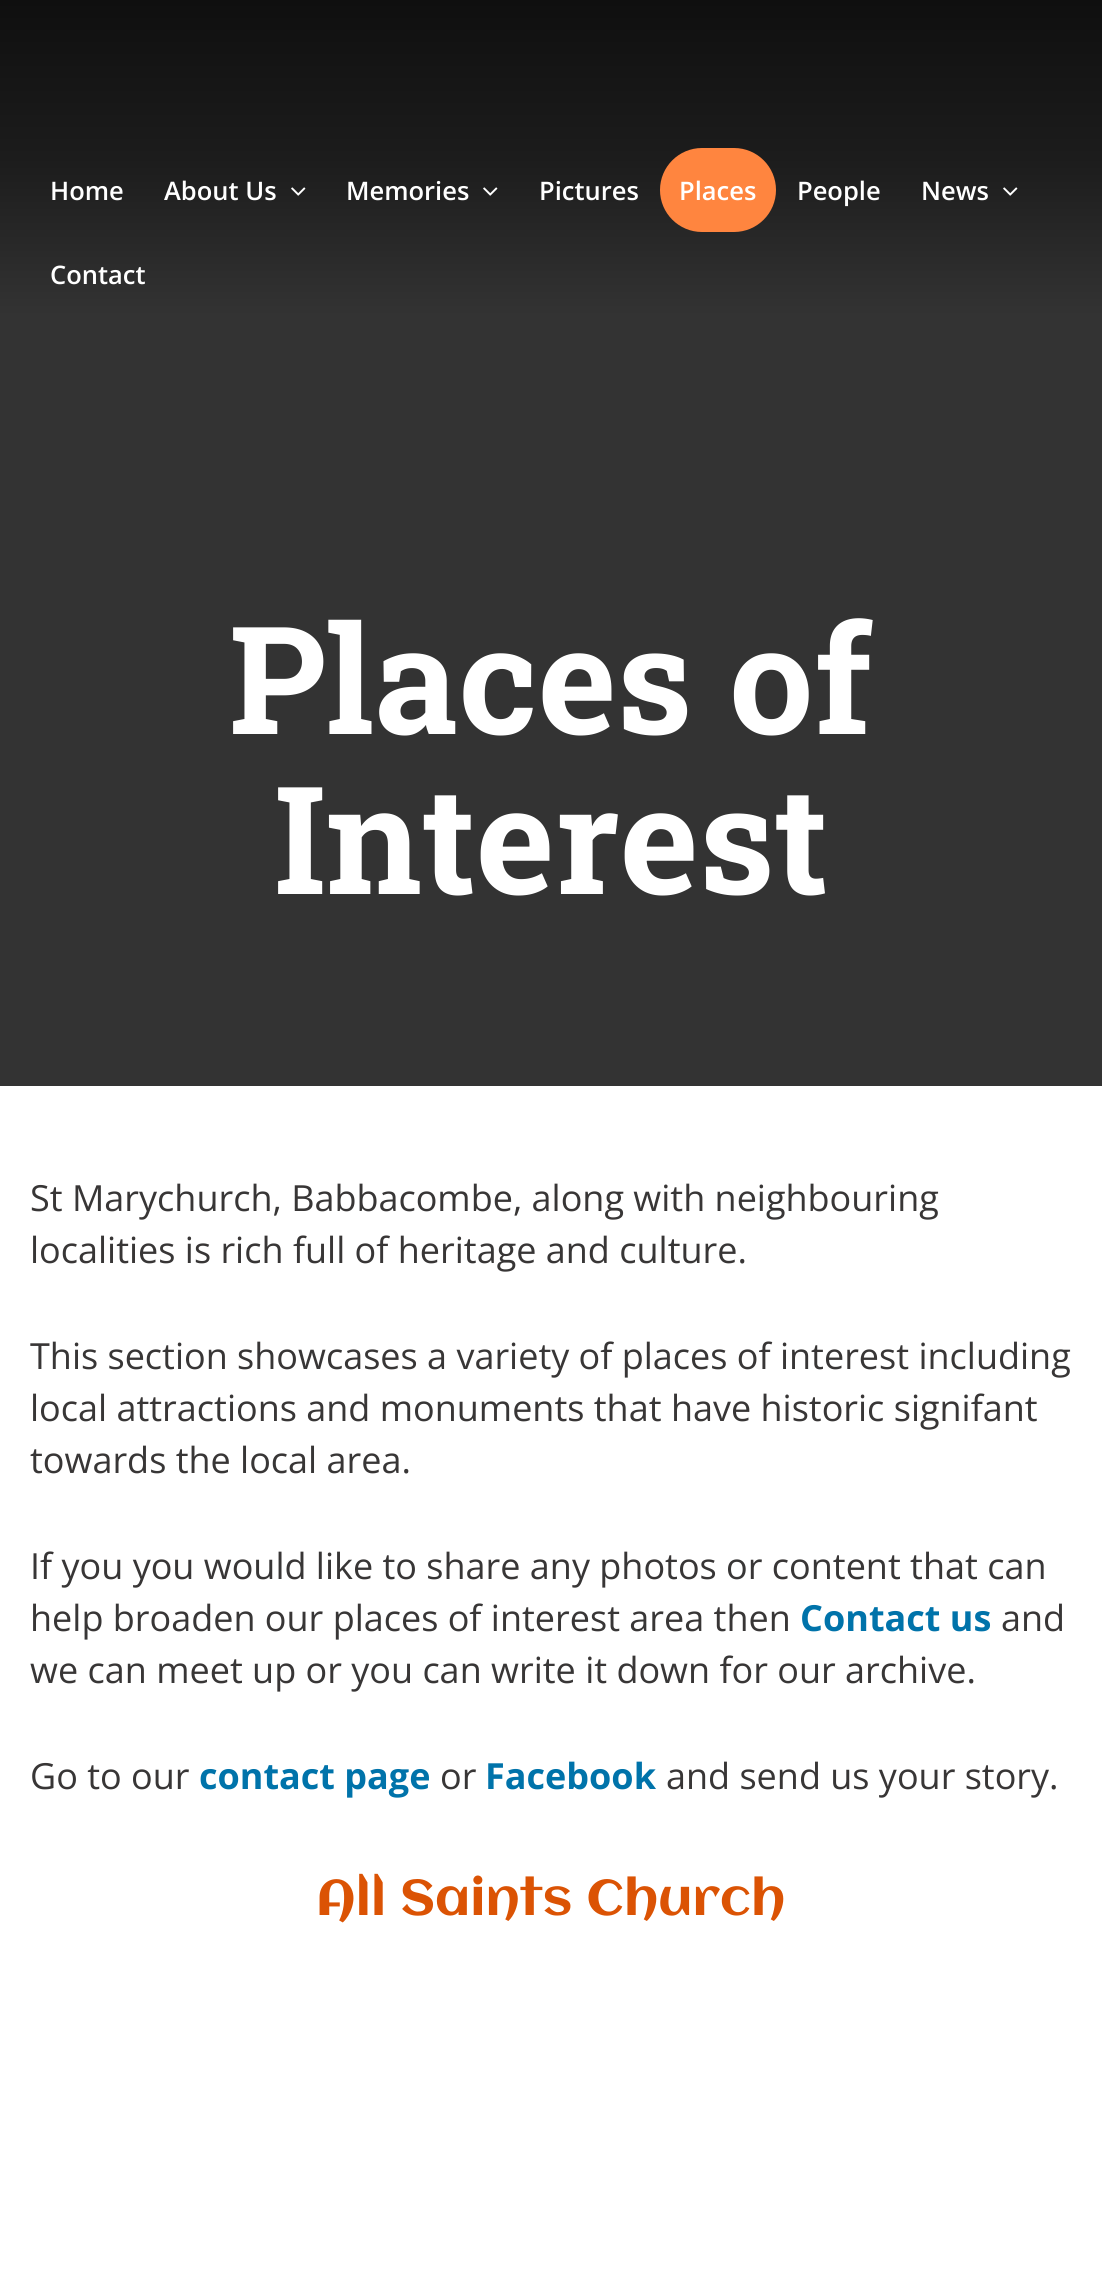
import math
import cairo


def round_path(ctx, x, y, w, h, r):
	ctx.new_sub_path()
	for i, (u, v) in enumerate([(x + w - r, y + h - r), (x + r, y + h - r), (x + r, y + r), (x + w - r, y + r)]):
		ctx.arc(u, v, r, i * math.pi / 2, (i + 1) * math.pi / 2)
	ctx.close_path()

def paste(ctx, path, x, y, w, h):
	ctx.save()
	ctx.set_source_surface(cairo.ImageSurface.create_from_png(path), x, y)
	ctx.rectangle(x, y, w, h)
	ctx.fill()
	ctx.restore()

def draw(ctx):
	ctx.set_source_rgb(1, 1, 1)
	ctx.paint()
	gradient = cairo.LinearGradient(551, 0, 551, 316)
	gradient.add_color_stop_rgba(0, 0.059, 0.059, 0.059, 1)
	gradient.add_color_stop_rgba(0.5, 0.11, 0.11, 0.11, 1)
	gradient.add_color_stop_rgba(1, 0.2, 0.2, 0.2, 1)
	ctx.set_source(gradient)
	ctx.rectangle(0, 0, 1102, 316)
	ctx.fill()
	ctx.select_font_face('Open Sans SemiBold')
	ctx.set_font_size(25.5)
	ctx.set_source_rgb(1, 1, 1)
	ctx.move_to(50, 200)
	ctx.show_text('Home')
	ctx.move_to(164, 200)
	ctx.show_text('About Us')
	paste(ctx, 'media/1.png', 291, 187, 15, 9)
	ctx.move_to(346, 200)
	ctx.show_text('Memories')
	paste(ctx, 'media/1.png', 483, 187, 15, 9)
	ctx.move_to(539, 200)
	ctx.show_text('Pictures')
	ctx.set_source_rgb(1, 0.522, 0.247)
	round_path(ctx, 660, 148, 116, 84, 42)
	ctx.fill()
	ctx.set_source_rgb(1, 1, 1)
	for x, y, s in [
		(679, 200, 'Places'),
		(797, 200, 'People'),
		(921, 200, 'News'),
	]:
		ctx.move_to(x, y)
		ctx.show_text(s)
	paste(ctx, 'media/1.png', 1003, 187, 15, 9)
	ctx.move_to(50, 284)
	ctx.show_text('Contact')
	ctx.set_source_rgb(0.2, 0.2, 0.2)
	ctx.rectangle(0, 316, 1102, 770)
	ctx.fill()
	ctx.select_font_face('Roboto Slab', cairo.FONT_SLANT_NORMAL, cairo.FONT_WEIGHT_BOLD)
	ctx.set_font_size(150)
	ctx.set_source_rgb(1, 1, 1)
	ctx.move_to(229, 734)
	ctx.show_text('Places of')
	ctx.move_to(274, 894)
	ctx.show_text('Interest')
	ctx.select_font_face('Open Sans')
	ctx.set_font_size(36)
	ctx.set_source_rgb(0.22, 0.212, 0.212)
	for x, y, s in [
		(30, 1211, 'St Marychurch, Babbacombe, along with neighbouring'),
		(30, 1263, 'localities is rich full of heritage and culture.'),
		(30, 1369, 'This section showcases a variety of places of interest including'),
		(30, 1421, 'local attractions and monuments that have historic signifant'),
		(30, 1473, 'towards the local area.'),
		(30, 1579, 'If you you would like to share any photos or content that can'),
		(30, 1631, 'help broaden our places of interest area then'),
	]:
		ctx.move_to(x, y)
		ctx.show_text(s)
	ctx.select_font_face('Open Sans', cairo.FONT_SLANT_NORMAL, cairo.FONT_WEIGHT_BOLD)
	ctx.set_source_rgb(0, 0.451, 0.667)
	ctx.move_to(800, 1631)
	ctx.show_text('Contact us')
	ctx.select_font_face('Open Sans')
	ctx.set_source_rgb(0.22, 0.212, 0.212)
	for x, y, s in [
		(1001, 1631, 'and'),
		(30, 1683, 'we can meet up or you can write it down for our archive.'),
		(30, 1789, 'Go to our'),
	]:
		ctx.move_to(x, y)
		ctx.show_text(s)
	ctx.select_font_face('Open Sans', cairo.FONT_SLANT_NORMAL, cairo.FONT_WEIGHT_BOLD)
	ctx.set_source_rgb(0, 0.451, 0.667)
	ctx.move_to(199, 1789)
	ctx.show_text('contact page')
	ctx.select_font_face('Open Sans')
	ctx.set_source_rgb(0.22, 0.212, 0.212)
	ctx.move_to(440, 1789)
	ctx.show_text('or')
	ctx.select_font_face('Open Sans', cairo.FONT_SLANT_NORMAL, cairo.FONT_WEIGHT_BOLD)
	ctx.set_source_rgb(0, 0.451, 0.667)
	ctx.move_to(485, 1789)
	ctx.show_text('Facebook')
	ctx.select_font_face('Open Sans')
	ctx.set_source_rgb(0.22, 0.212, 0.212)
	ctx.move_to(666, 1789)
	ctx.show_text('and send us your story.')
	ctx.select_font_face('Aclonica')
	ctx.set_font_size(50)
	ctx.set_source_rgb(0.859, 0.325, 0.016)
	ctx.move_to(316, 1915)
	ctx.show_text('All Saints Church')


surface = cairo.ImageSurface(cairo.FORMAT_RGB24, 1102, 2292)
ctx = cairo.Context(surface)
options = cairo.FontOptions()
options.set_hint_metrics(cairo.HINT_METRICS_OFF)
options.set_hint_style(cairo.HINT_STYLE_NONE)
ctx.set_font_options(options)
ctx.set_miter_limit(4)
draw(ctx)
surface.write_to_png('image.png')
